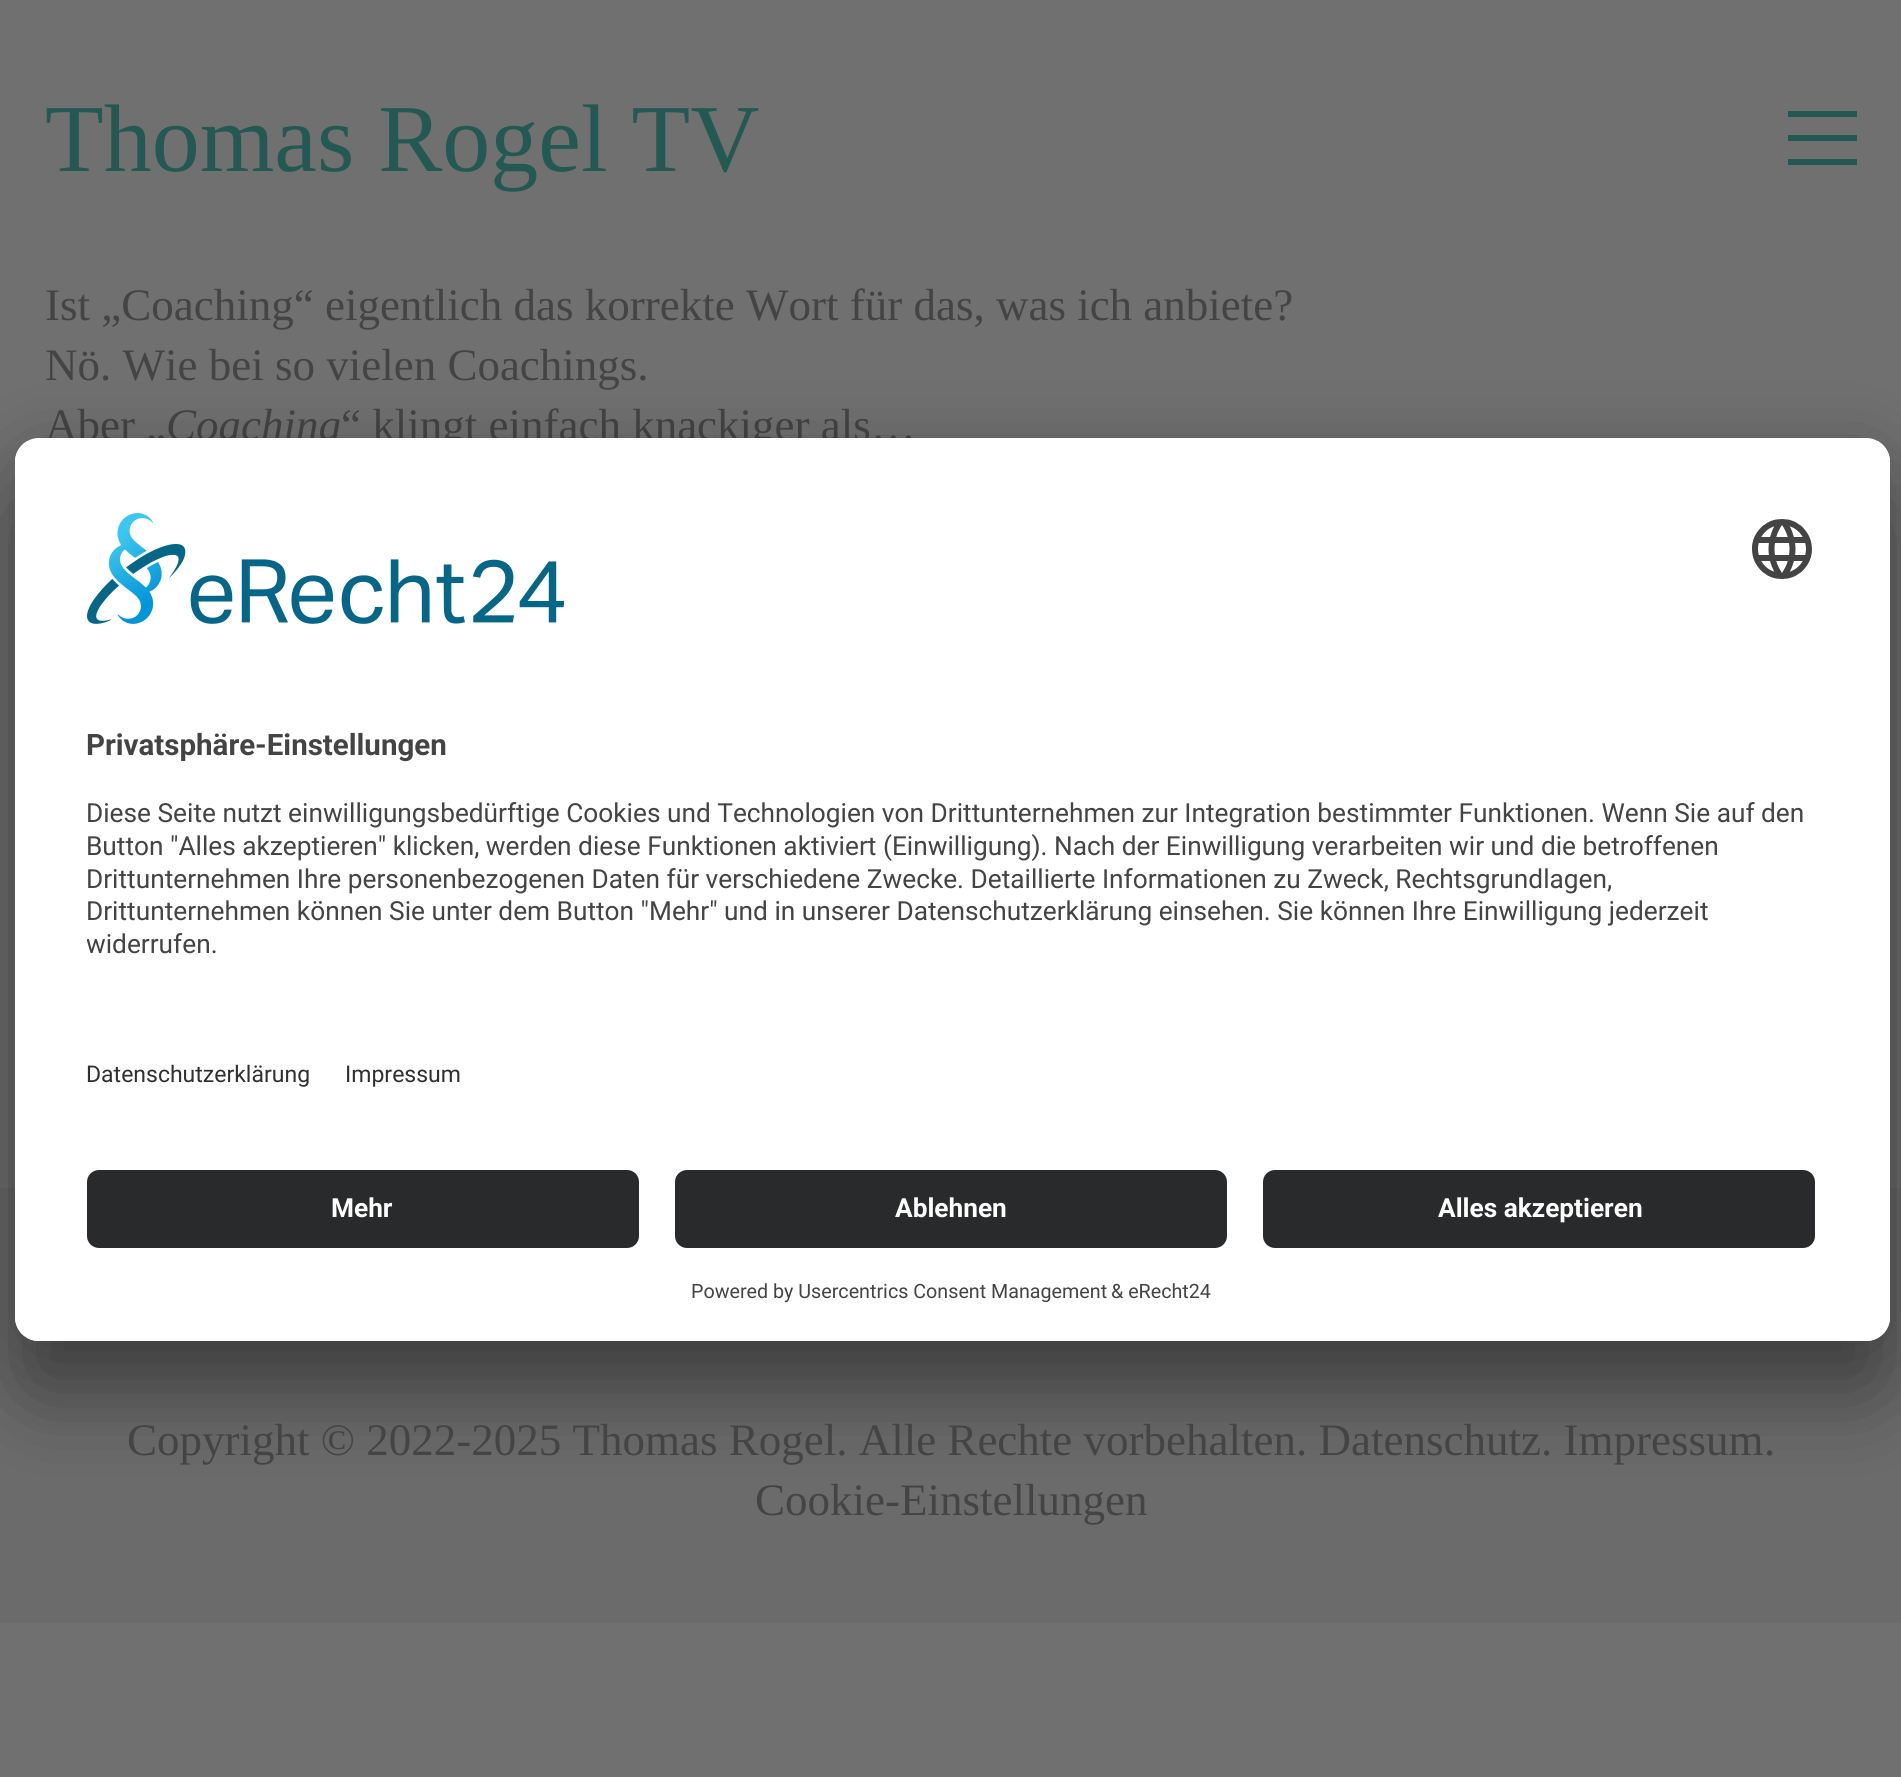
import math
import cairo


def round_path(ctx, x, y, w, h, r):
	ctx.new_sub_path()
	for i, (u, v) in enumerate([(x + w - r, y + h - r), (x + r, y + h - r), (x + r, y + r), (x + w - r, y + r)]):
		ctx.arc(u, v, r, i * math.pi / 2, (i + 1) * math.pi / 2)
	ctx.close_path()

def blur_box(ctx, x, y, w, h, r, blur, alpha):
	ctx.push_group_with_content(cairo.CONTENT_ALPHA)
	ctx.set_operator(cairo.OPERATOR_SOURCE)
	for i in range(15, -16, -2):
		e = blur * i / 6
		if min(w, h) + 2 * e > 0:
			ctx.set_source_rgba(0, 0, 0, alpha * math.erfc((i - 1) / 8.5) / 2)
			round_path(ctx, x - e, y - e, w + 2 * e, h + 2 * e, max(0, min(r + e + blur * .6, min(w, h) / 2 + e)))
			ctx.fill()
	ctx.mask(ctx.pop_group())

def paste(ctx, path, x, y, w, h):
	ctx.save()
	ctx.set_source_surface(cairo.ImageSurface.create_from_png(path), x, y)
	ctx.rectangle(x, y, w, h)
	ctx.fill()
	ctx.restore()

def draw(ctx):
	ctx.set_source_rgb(0.439, 0.439, 0.439)
	ctx.paint()
	ctx.select_font_face('Liberation Serif')
	ctx.set_font_size(96)
	ctx.set_source_rgb(0.141, 0.349, 0.325)
	ctx.move_to(45, 171)
	ctx.show_text('Thomas Rogel TV')
	ctx.rectangle(1788, 111, 69, 6)
	ctx.rectangle(1788, 135, 69, 6)
	ctx.rectangle(1788, 159, 69, 6)
	ctx.fill()
	ctx.set_font_size(45)
	ctx.set_source_rgb(0.267, 0.267, 0.267)
	for x, y, s in [
		(45, 320, 'Ist „Coaching“ eigentlich das korrekte Wort für das, was ich anbiete?'),
		(45, 380, 'Nö. Wie bei so vielen Coachings.'),
		(45, 440, 'Aber „'),
	]:
		ctx.move_to(x, y)
		ctx.show_text(s)
	ctx.select_font_face('Liberation Serif', cairo.FONT_SLANT_ITALIC)
	ctx.move_to(166, 440)
	ctx.show_text('Coaching')
	ctx.select_font_face('Liberation Serif')
	ctx.move_to(341, 440)
	ctx.show_text('“ klingt einfach knackiger als…')
	ctx.set_source_rgb(0.42, 0.42, 0.42)
	ctx.rectangle(0, 1188, 1901, 435)
	ctx.fill()
	ctx.set_source_rgb(0, 0, 0)
	blur_box(ctx, 15, 498, 1875, 903, 24, 42, 0.3)
	blur_box(ctx, 15, 453, 1875, 903, 24, 39, 0.22)
	ctx.set_source_rgb(1, 1, 1)
	round_path(ctx, 15, 438, 1875, 903, 24)
	ctx.fill()
	ctx.save()
	round_path(ctx, 15, 438, 1875, 903, 24)
	ctx.clip()
	ctx.new_path()
	ctx.move_to(39, 438)
	ctx.line_to(1866, 438)
	ctx.curve_to(1879.5, 438, 1890, 448.5, 1890, 462)
	ctx.line_to(1890, 1146)
	ctx.line_to(15, 1146)
	ctx.line_to(15, 462)
	ctx.curve_to(15, 448.5, 25.5, 438, 39, 438)
	ctx.close_path()
	ctx.clip()
	ctx.rectangle(15, 441, 1875, 705)
	ctx.fill()
	ctx.restore()
	paste(ctx, 'media/1.png', 87, 513, 477, 111)
	paste(ctx, 'media/2.png', 1752, 519, 60, 60)
	ctx.select_font_face('Roboto', cairo.FONT_SLANT_NORMAL, cairo.FONT_WEIGHT_BOLD)
	ctx.set_font_size(29.5)
	ctx.set_source_rgb(0.267, 0.267, 0.267)
	ctx.move_to(86, 755)
	ctx.show_text('Privatsphäre-Einstellungen')
	ctx.select_font_face('Roboto')
	ctx.set_font_size(26.25)
	for x, y, s in [
		(86, 822, 'Diese Seite nutzt einwilligungsbedürftige Cookies und Technologien von Drittunternehmen zur Integration bestimmter Funktionen. Wenn Sie auf den'),
		(86, 855, 'Button "Alles akzeptieren" klicken, werden diese Funktionen aktiviert (Einwilligung). Nach der Einwilligung verarbeiten wir und die betroffenen'),
		(86, 888, 'Drittunternehmen Ihre personenbezogenen Daten für verschiedene Zwecke. Detaillierte Informationen zu Zweck, Rechtsgrundlagen,'),
		(86, 920, 'Drittunternehmen können Sie unter dem Button "Mehr" und in unserer Datenschutzerklärung einsehen. Sie können Ihre Einwilligung jederzeit'),
	]:
		ctx.move_to(x, y)
		ctx.show_text(s)
	ctx.save()
	ctx.rectangle(87, 786, 1731, 189)
	ctx.clip()
	ctx.move_to(86, 953)
	ctx.show_text('widerrufen.')
	ctx.restore()
	ctx.set_font_size(23)
	ctx.set_source_rgb(0.188, 0.188, 0.188)
	ctx.move_to(86, 1082)
	ctx.show_text('Datenschutzerklärung')
	ctx.move_to(345, 1082)
	ctx.show_text('Impressum')
	ctx.set_source_rgb(1, 1, 1)
	ctx.new_path()
	ctx.move_to(15, 1146)
	ctx.line_to(1890, 1146)
	ctx.line_to(1890, 1317)
	ctx.curve_to(1890, 1330.5, 1879.5, 1341, 1866, 1341)
	ctx.line_to(39, 1341)
	ctx.curve_to(25.5, 1341, 15, 1330.5, 15, 1317)
	ctx.close_path()
	ctx.fill()
	ctx.set_source_rgb(0.161, 0.165, 0.169)
	round_path(ctx, 87, 1170, 552, 78, 12)
	ctx.fill()
	ctx.select_font_face('Roboto', cairo.FONT_SLANT_NORMAL, cairo.FONT_WEIGHT_BOLD)
	ctx.set_font_size(26.25)
	ctx.set_source_rgb(1, 1, 1)
	ctx.move_to(331, 1217)
	ctx.show_text('Mehr')
	ctx.set_source_rgb(0.161, 0.165, 0.169)
	round_path(ctx, 675, 1170, 552, 78, 12)
	ctx.fill()
	ctx.set_source_rgb(1, 1, 1)
	ctx.move_to(895, 1217)
	ctx.show_text('Ablehnen')
	ctx.set_source_rgb(0.161, 0.165, 0.169)
	round_path(ctx, 1263, 1170, 552, 78, 12)
	ctx.fill()
	ctx.set_source_rgb(1, 1, 1)
	ctx.move_to(1438, 1217)
	ctx.show_text('Alles akzeptieren')
	ctx.select_font_face('Roboto')
	ctx.set_font_size(19.7)
	ctx.set_source_rgb(0.267, 0.267, 0.267)
	ctx.move_to(691, 1298)
	ctx.show_text('Powered by Usercentrics Consent Management')
	ctx.move_to(1111, 1298)
	ctx.show_text('& eRecht24')
	ctx.select_font_face('Liberation Serif')
	ctx.set_font_size(45)
	for x, y, s in [
		(127, 1455, 'Copyright © 2022-2025 Thomas Rogel. Alle Rechte vorbehalten. Datenschutz'),
		(1541, 1455, '. Impressum'),
		(1764, 1455, '.'),
		(755, 1515, 'Cookie-Einstellungen'),
	]:
		ctx.move_to(x, y)
		ctx.show_text(s)


surface = cairo.ImageSurface(cairo.FORMAT_RGB24, 1901, 1777)
ctx = cairo.Context(surface)
options = cairo.FontOptions()
options.set_hint_metrics(cairo.HINT_METRICS_OFF)
options.set_hint_style(cairo.HINT_STYLE_NONE)
ctx.set_font_options(options)
ctx.set_miter_limit(4)
draw(ctx)
surface.write_to_png('image.png')
